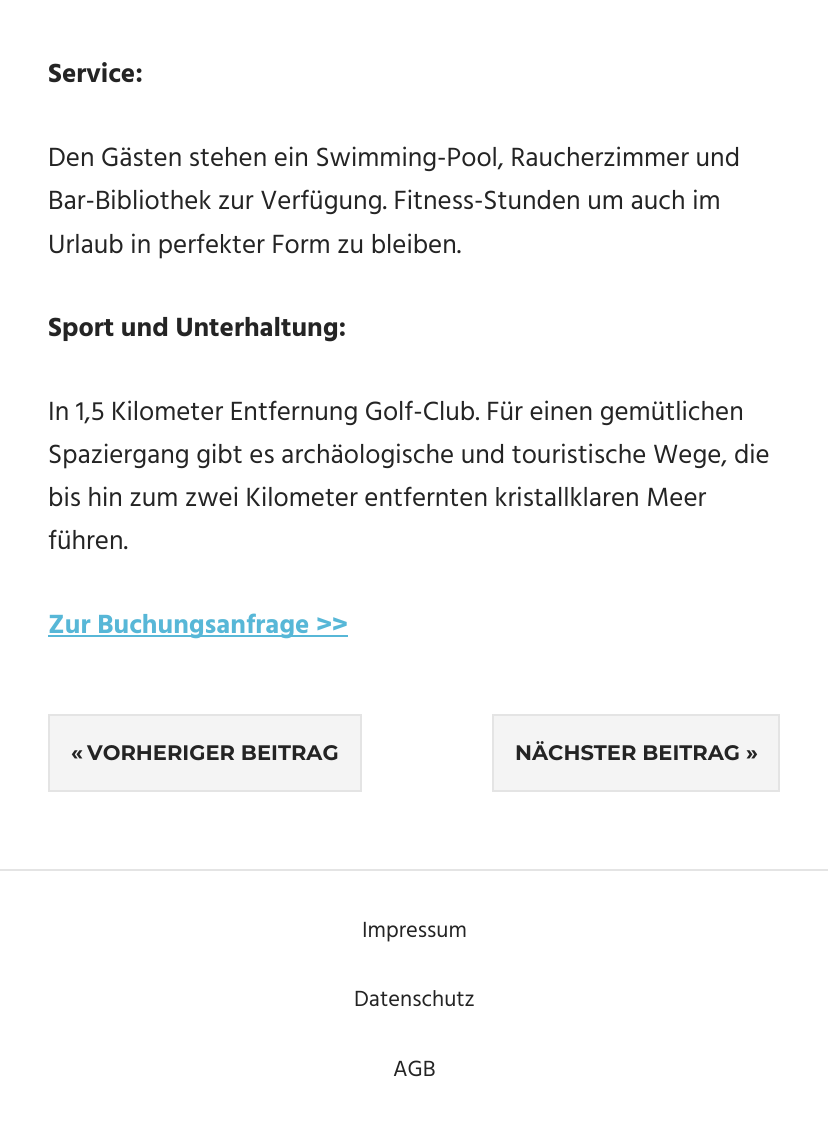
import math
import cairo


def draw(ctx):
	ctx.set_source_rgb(1, 1, 1)
	ctx.paint()
	ctx.select_font_face('Hind', cairo.FONT_SLANT_NORMAL, cairo.FONT_WEIGHT_BOLD)
	ctx.set_font_size(27)
	ctx.set_source_rgb(0.141, 0.141, 0.141)
	ctx.move_to(48, 82)
	ctx.show_text('Service:')
	ctx.select_font_face('Hind')
	for x, y, s in [
		(48, 166, 'Den Gästen stehen ein Swimming-Pool, Raucherzimmer und'),
		(48, 209, 'Bar-Bibliothek zur Verfügung. Fitness-Stunden um auch im'),
		(48, 253, 'Urlaub in perfekter Form zu bleiben.'),
	]:
		ctx.move_to(x, y)
		ctx.show_text(s)
	ctx.select_font_face('Hind', cairo.FONT_SLANT_NORMAL, cairo.FONT_WEIGHT_BOLD)
	ctx.move_to(48, 336)
	ctx.show_text('Sport und Unterhaltung:')
	ctx.select_font_face('Hind')
	for x, y, s in [
		(48, 420, 'In 1,5 Kilometer Entfernung Golf-Club. Für einen gemütlichen'),
		(48, 463, 'Spaziergang gibt es archäologische und touristische Wege, die'),
		(48, 506, 'bis hin zum zwei Kilometer entfernten kristallklaren Meer'),
		(48, 549, 'führen.'),
	]:
		ctx.move_to(x, y)
		ctx.show_text(s)
	ctx.set_source_rgb(0.341, 0.718, 0.843)
	ctx.rectangle(48, 635, 300, 2)
	ctx.fill()
	ctx.select_font_face('Hind', cairo.FONT_SLANT_NORMAL, cairo.FONT_WEIGHT_BOLD)
	ctx.move_to(48, 633)
	ctx.show_text('Zur Buchungsanfrage >>')
	ctx.set_source_rgb(0.957, 0.957, 0.957)
	ctx.rectangle(49, 715, 312, 76)
	ctx.fill_preserve()
	ctx.set_source_rgb(0.894, 0.894, 0.894)
	ctx.stroke()
	ctx.select_font_face('Montserrat', cairo.FONT_SLANT_NORMAL, cairo.FONT_WEIGHT_BOLD)
	ctx.set_font_size(21)
	ctx.set_source_rgb(0.141, 0.141, 0.141)
	ctx.move_to(71, 760)
	ctx.show_text('«')
	ctx.move_to(87, 760)
	ctx.show_text('VORHERIGER BEITRAG')
	ctx.set_source_rgb(0.957, 0.957, 0.957)
	ctx.rectangle(493, 715, 286, 76)
	ctx.fill_preserve()
	ctx.set_source_rgb(0.894, 0.894, 0.894)
	ctx.stroke()
	ctx.set_source_rgb(0.141, 0.141, 0.141)
	ctx.move_to(515, 760)
	ctx.show_text('NÄCHSTER BEITRAG »')
	ctx.set_source_rgb(0.894, 0.894, 0.894)
	ctx.rectangle(0, 869, 828, 2)
	ctx.fill()
	ctx.select_font_face('Hind')
	ctx.set_font_size(22.5)
	ctx.set_source_rgb(0.141, 0.141, 0.141)
	for x, y, s in [
		(362, 937, 'Impressum'),
		(354, 1006, 'Datenschutz'),
		(393, 1076, 'AGB'),
	]:
		ctx.move_to(x, y)
		ctx.show_text(s)


surface = cairo.ImageSurface(cairo.FORMAT_RGB24, 828, 1141)
ctx = cairo.Context(surface)
options = cairo.FontOptions()
options.set_hint_metrics(cairo.HINT_METRICS_OFF)
options.set_hint_style(cairo.HINT_STYLE_NONE)
ctx.set_font_options(options)
ctx.set_miter_limit(4)
draw(ctx)
surface.write_to_png('image.png')
